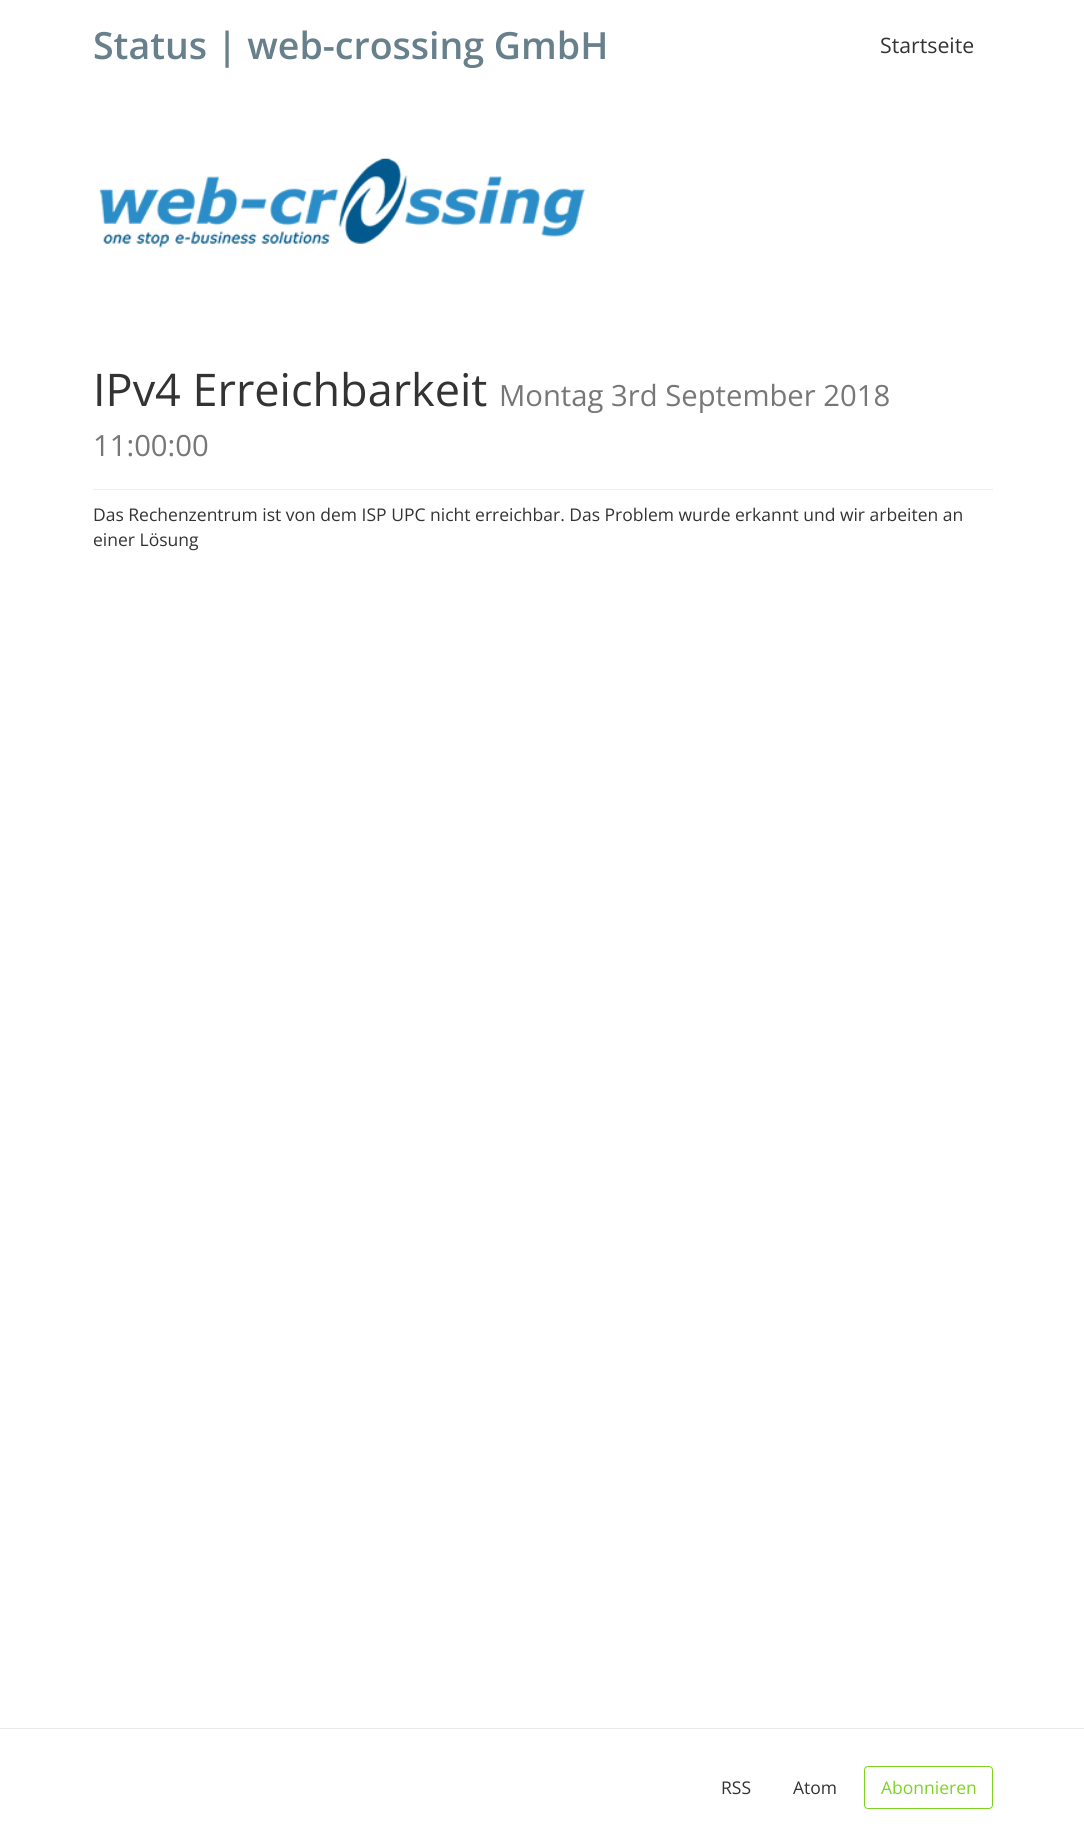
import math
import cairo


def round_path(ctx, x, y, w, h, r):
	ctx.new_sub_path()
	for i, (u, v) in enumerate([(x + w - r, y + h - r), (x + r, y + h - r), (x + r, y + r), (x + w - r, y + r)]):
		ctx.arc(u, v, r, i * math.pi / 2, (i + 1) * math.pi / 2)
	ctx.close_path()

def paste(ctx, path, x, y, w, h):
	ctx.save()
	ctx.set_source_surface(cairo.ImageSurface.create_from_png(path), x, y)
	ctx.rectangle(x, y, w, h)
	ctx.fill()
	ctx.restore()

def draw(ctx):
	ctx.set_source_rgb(1, 1, 1)
	ctx.paint()
	ctx.select_font_face('Open Sans SemiBold')
	ctx.set_font_size(37.5)
	ctx.set_source_rgb(0.404, 0.502, 0.549)
	ctx.move_to(93, 59)
	ctx.show_text('Status | web-crossing GmbH')
	ctx.select_font_face('Open Sans')
	ctx.set_font_size(21.25)
	ctx.set_source_rgb(0.2, 0.2, 0.2)
	ctx.move_to(880, 53)
	ctx.show_text('Startseite')
	paste(ctx, 'media/1.png', 99, 158, 487, 90)
	ctx.set_font_size(45)
	ctx.move_to(93, 406)
	ctx.show_text('IPv4 Erreichbarkeit')
	ctx.set_font_size(29.25)
	ctx.set_source_rgb(0.467, 0.467, 0.467)
	ctx.move_to(499, 406)
	ctx.show_text('Montag 3rd September 2018')
	ctx.move_to(93, 456)
	ctx.show_text('11:00:00')
	ctx.set_source_rgb(0.933, 0.933, 0.933)
	ctx.rectangle(93, 489, 900, 1)
	ctx.fill()
	ctx.set_font_size(17.5)
	ctx.set_source_rgb(0.2, 0.2, 0.2)
	ctx.move_to(93, 521)
	ctx.show_text('Das Rechenzentrum ist von dem ISP UPC nicht erreichbar. Das Problem wurde erkannt und wir arbeiten an')
	ctx.move_to(93, 546)
	ctx.show_text('einer Lösung')
	ctx.set_source_rgb(0.91, 0.91, 0.91)
	ctx.rectangle(0, 1728, 1084, 1)
	ctx.fill()
	ctx.set_source_rgb(0.2, 0.2, 0.2)
	ctx.move_to(721, 1794)
	ctx.show_text('RSS')
	ctx.move_to(793, 1794)
	ctx.show_text('Atom')
	round_path(ctx, 864.5, 1766.5, 128, 42, 3.5)
	ctx.set_source_rgb(0.494, 0.827, 0.129)
	ctx.set_line_width(1)
	ctx.stroke()
	ctx.move_to(881, 1794)
	ctx.show_text('Abonnieren')


surface = cairo.ImageSurface(cairo.FORMAT_RGB24, 1084, 1841)
ctx = cairo.Context(surface)
options = cairo.FontOptions()
options.set_hint_metrics(cairo.HINT_METRICS_OFF)
options.set_hint_style(cairo.HINT_STYLE_NONE)
ctx.set_font_options(options)
ctx.set_miter_limit(4)
draw(ctx)
surface.write_to_png('image.png')
